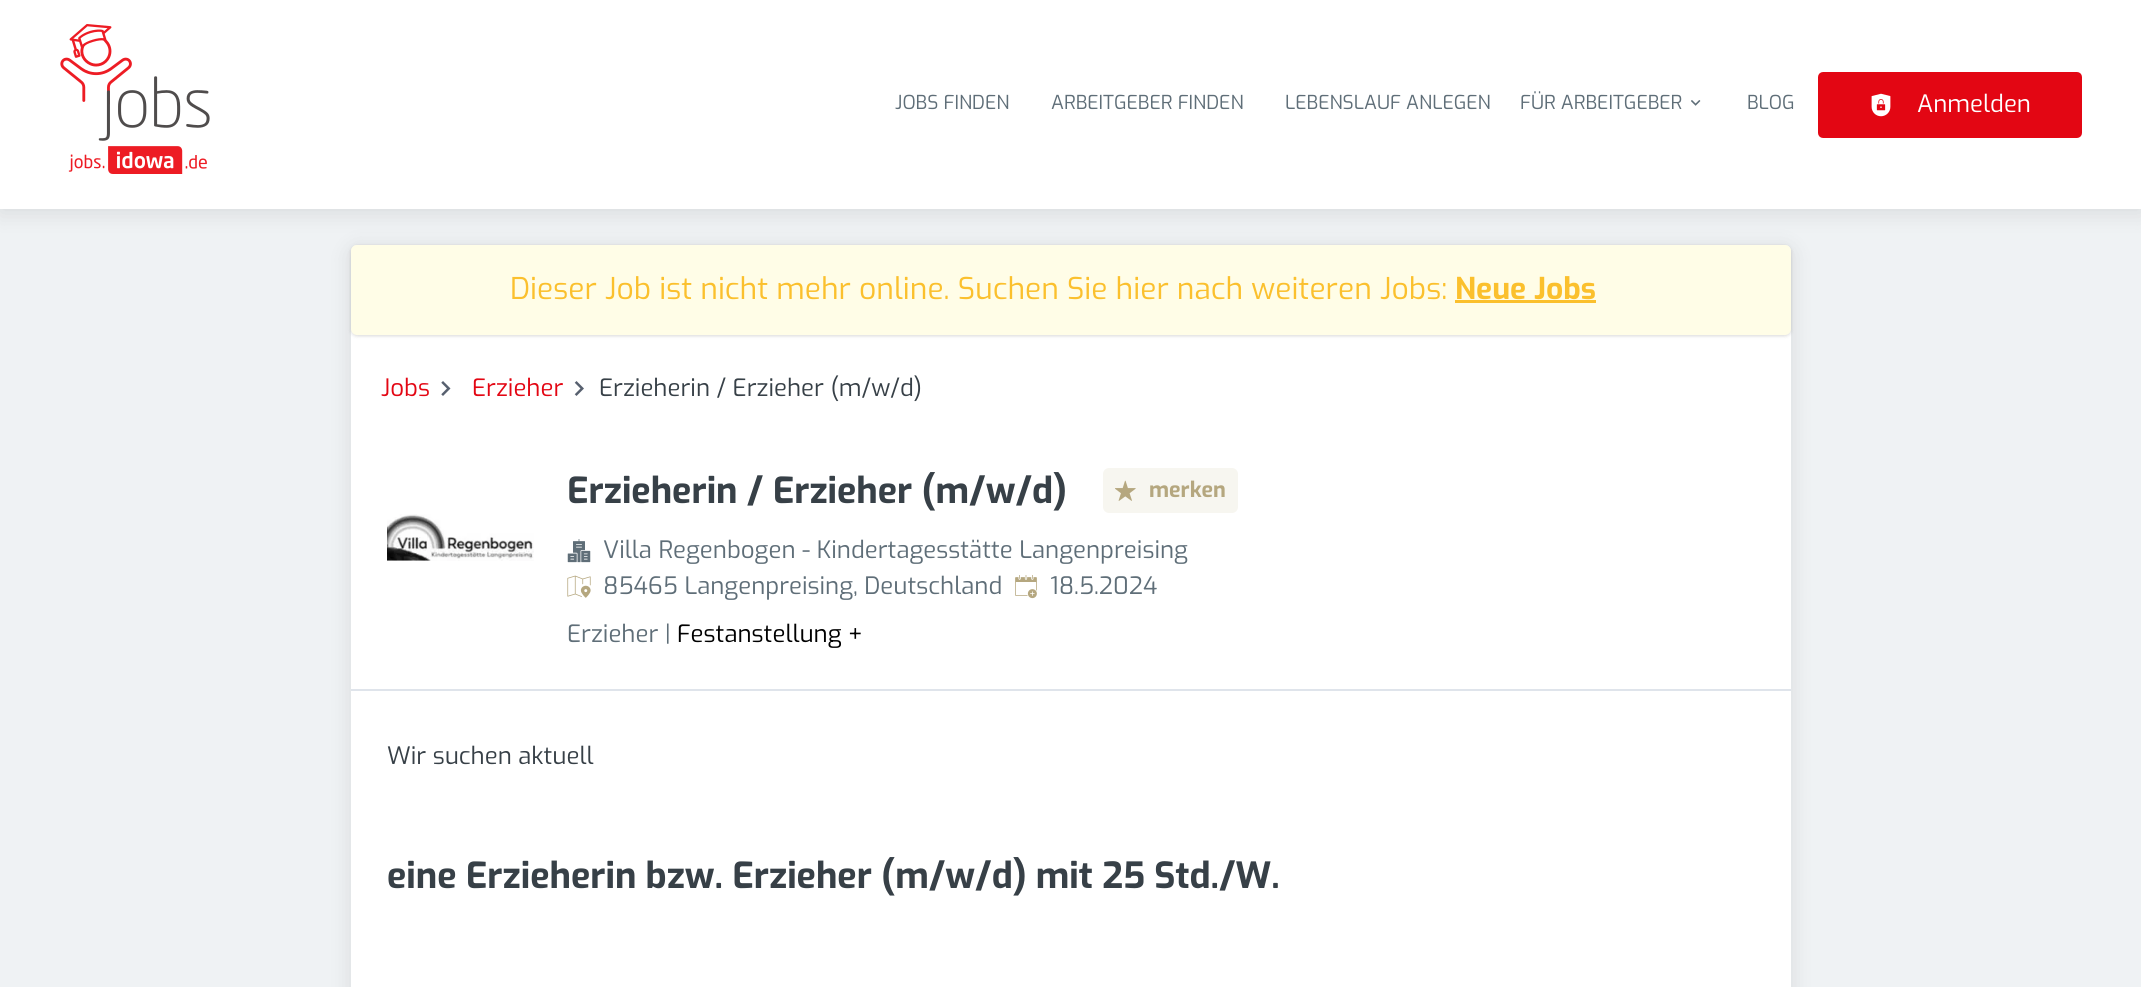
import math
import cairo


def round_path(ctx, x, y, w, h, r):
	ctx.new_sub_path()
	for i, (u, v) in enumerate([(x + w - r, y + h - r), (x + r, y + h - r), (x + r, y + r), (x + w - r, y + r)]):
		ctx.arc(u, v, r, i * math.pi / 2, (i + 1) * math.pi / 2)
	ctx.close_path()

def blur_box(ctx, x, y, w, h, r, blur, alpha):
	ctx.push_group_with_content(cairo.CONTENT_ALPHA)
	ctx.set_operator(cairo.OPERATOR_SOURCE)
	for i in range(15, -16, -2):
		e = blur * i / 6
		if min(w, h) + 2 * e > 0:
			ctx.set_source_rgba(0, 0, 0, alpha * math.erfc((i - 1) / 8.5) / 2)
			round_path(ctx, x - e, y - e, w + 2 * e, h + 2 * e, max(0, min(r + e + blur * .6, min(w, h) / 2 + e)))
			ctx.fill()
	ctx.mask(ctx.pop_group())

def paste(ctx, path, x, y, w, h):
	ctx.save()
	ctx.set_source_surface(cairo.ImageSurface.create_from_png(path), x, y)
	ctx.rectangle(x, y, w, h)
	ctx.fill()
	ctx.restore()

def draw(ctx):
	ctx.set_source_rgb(0.937, 0.949, 0.957)
	ctx.paint()
	ctx.set_source_rgb(0, 0, 0)
	blur_box(ctx, 0, 5, 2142, 208, 0, 11, 0.1)
	ctx.set_source_rgb(1, 1, 1)
	ctx.rectangle(0, 0, 2141, 209)
	ctx.fill()
	paste(ctx, 'media/1.png', 60, 24, 150, 150)
	ctx.select_font_face('Exo')
	ctx.set_font_size(19.25)
	ctx.set_source_rgb(0.373, 0.431, 0.471)
	for x, y, s in [
		(895, 109, 'JOBS FINDEN'),
		(1051, 109, 'ARBEITGEBER FINDEN'),
		(1285, 109, 'LEBENSLAUF ANLEGEN'),
		(1520, 109, 'FÜR ARBEITGEBER'),
	]:
		ctx.move_to(x, y)
		ctx.show_text(s)
	paste(ctx, 'media/2.png', 1691, 100, 10, 6)
	ctx.move_to(1747, 109)
	ctx.show_text('BLOG')
	ctx.set_source_rgb(0.89, 0.024, 0.075)
	round_path(ctx, 1819.5, 73.5, 261, 63, 3.5)
	ctx.fill_preserve()
	ctx.set_line_width(3)
	ctx.stroke()
	paste(ctx, 'media/3.png', 1871, 93, 20, 24)
	ctx.set_font_size(24)
	ctx.set_source_rgb(1, 1, 1)
	ctx.move_to(1917, 112)
	ctx.show_text('Anmelden')
	ctx.set_source_rgb(0, 0, 0)
	blur_box(ctx, 351, 249, 1440, 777, 6, 11, 0.1)
	ctx.set_source_rgb(1, 1, 1)
	round_path(ctx, 351, 245, 1440, 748, 6)
	ctx.fill()
	ctx.set_source_rgb(0, 0, 0)
	blur_box(ctx, 351, 246, 1440, 90, 6, 1.5, 0.06)
	blur_box(ctx, 351, 246, 1440, 90, 6, 2, 0.1)
	ctx.set_source_rgb(1, 0.992, 0.906)
	round_path(ctx, 352.5, 246.5, 1437, 87, 4.5)
	ctx.fill_preserve()
	ctx.stroke()
	ctx.set_font_size(30)
	ctx.set_source_rgb(0.984, 0.753, 0.176)
	ctx.move_to(510, 299)
	ctx.show_text('Dieser Job ist nicht mehr online. Suchen Sie hier nach weiteren Jobs:')
	ctx.select_font_face('Exo', cairo.FONT_SLANT_NORMAL, cairo.FONT_WEIGHT_BOLD)
	ctx.move_to(1455, 299)
	ctx.show_text('Neue Jobs')
	ctx.rectangle(1455, 300, 141, 3)
	ctx.fill()
	ctx.select_font_face('Exo')
	ctx.set_font_size(24)
	ctx.set_source_rgb(0.89, 0.024, 0.075)
	ctx.move_to(381, 396)
	ctx.show_text('Jobs')
	paste(ctx, 'media/4.png', 441, 381, 10, 15)
	ctx.move_to(472, 396)
	ctx.show_text('Erzieher')
	paste(ctx, 'media/5.png', 574, 381, 10, 15)
	ctx.set_source_rgb(0.216, 0.251, 0.278)
	ctx.move_to(599, 396)
	ctx.show_text('Erzieherin / Erzieher (m/w/d)')
	ctx.set_source_rgb(0.875, 0.894, 0.918)
	ctx.rectangle(351, 689, 1440, 2)
	ctx.fill()
	paste(ctx, 'media/6.png', 387, 514, 147, 47)
	ctx.select_font_face('Exo', cairo.FONT_SLANT_NORMAL, cairo.FONT_WEIGHT_BOLD)
	ctx.set_font_size(36)
	ctx.set_source_rgb(0.216, 0.251, 0.278)
	ctx.move_to(567, 503)
	ctx.show_text('Erzieherin / Erzieher (m/w/d)')
	ctx.set_source_rgb(0.965, 0.961, 0.941)
	round_path(ctx, 1103, 468, 135, 45, 6)
	ctx.fill()
	paste(ctx, 'media/7.png', 1115, 480, 21, 21)
	ctx.set_font_size(21.5)
	ctx.set_source_rgb(0.71, 0.655, 0.498)
	ctx.move_to(1149, 497)
	ctx.show_text('merken')
	paste(ctx, 'media/8.png', 567, 539, 24, 24)
	ctx.select_font_face('Exo')
	ctx.set_font_size(24)
	ctx.set_source_rgb(0.373, 0.431, 0.471)
	ctx.move_to(603, 558)
	ctx.show_text('Villa Regenbogen - Kindertagesstätte Langenpreising')
	paste(ctx, 'media/9.png', 567, 575, 24, 23)
	ctx.move_to(603, 594)
	ctx.show_text('85465 Langenpreising, Deutschland')
	paste(ctx, 'media/10.png', 1015, 575, 22, 24)
	ctx.move_to(1050, 594)
	ctx.show_text('18.5.2024')
	ctx.move_to(567, 642)
	ctx.show_text('Erzieher |')
	ctx.set_source_rgb(0, 0, 0)
	ctx.move_to(677, 642)
	ctx.show_text('Festanstellung +')
	ctx.set_source_rgb(0.216, 0.251, 0.278)
	ctx.move_to(387, 764)
	ctx.show_text('Wir suchen aktuell')
	ctx.select_font_face('Exo', cairo.FONT_SLANT_NORMAL, cairo.FONT_WEIGHT_BOLD)
	ctx.set_font_size(36)
	ctx.move_to(387, 888)
	ctx.show_text('eine Erzieherin bzw. Erzieher (m/w/d) mit 25 Std./W.')


surface = cairo.ImageSurface(cairo.FORMAT_RGB24, 2141, 987)
ctx = cairo.Context(surface)
options = cairo.FontOptions()
options.set_hint_metrics(cairo.HINT_METRICS_OFF)
options.set_hint_style(cairo.HINT_STYLE_NONE)
ctx.set_font_options(options)
ctx.set_miter_limit(4)
draw(ctx)
surface.write_to_png('image.png')
